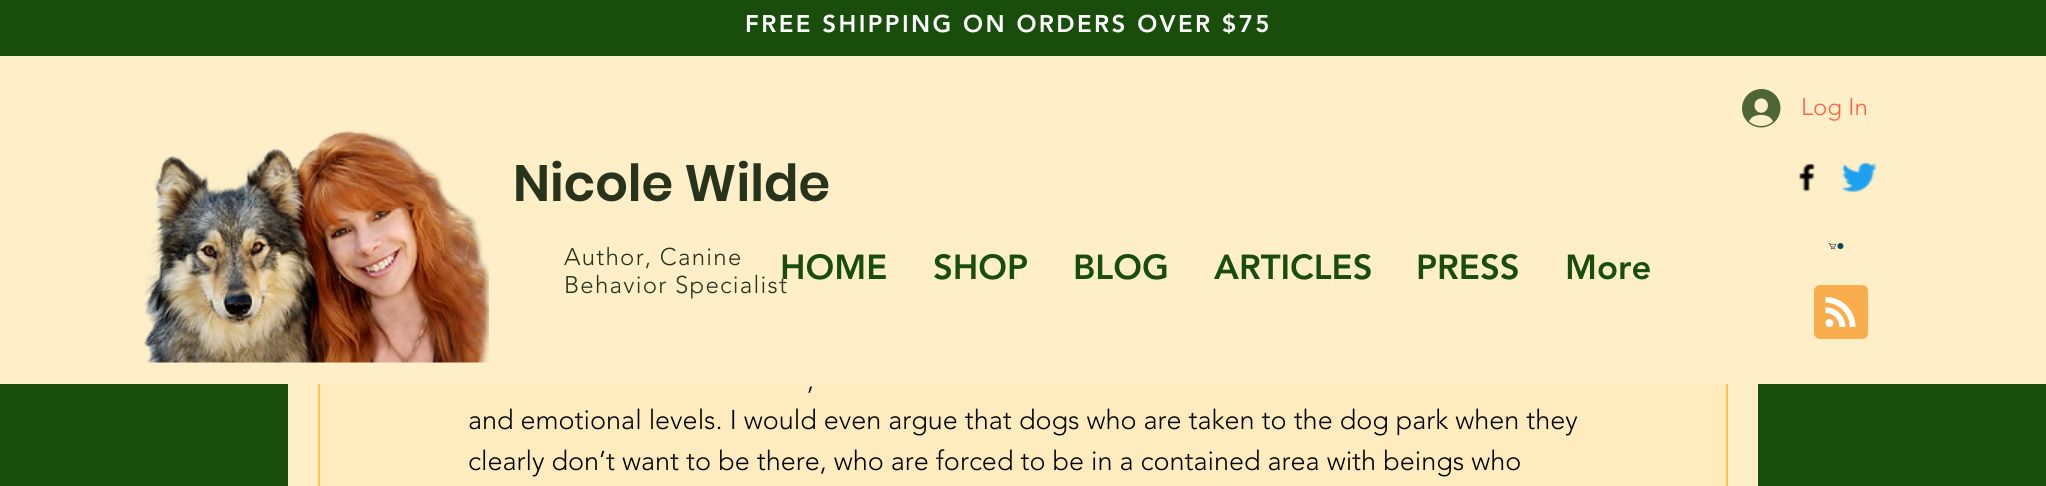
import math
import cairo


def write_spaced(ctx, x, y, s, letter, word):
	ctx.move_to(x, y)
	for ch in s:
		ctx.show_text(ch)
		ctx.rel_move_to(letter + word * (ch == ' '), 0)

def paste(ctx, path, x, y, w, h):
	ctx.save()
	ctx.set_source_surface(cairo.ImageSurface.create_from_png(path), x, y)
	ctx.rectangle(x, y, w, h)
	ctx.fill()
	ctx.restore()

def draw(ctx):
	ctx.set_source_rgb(0.094, 0.302, 0.043)
	ctx.paint()
	ctx.set_source_rgb(1, 0.937, 0.788)
	ctx.rectangle(288, 384, 1470, 102)
	ctx.fill()
	ctx.set_source_rgb(1, 0.925, 0.745)
	ctx.rectangle(320, 384, 1406, 102)
	ctx.fill()
	ctx.rectangle(319, -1, 1408, 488)
	ctx.set_source_rgb(1, 0.776, 0.271)
	ctx.stroke()
	ctx.set_source_rgb(0.094, 0.302, 0.043)
	ctx.rectangle(318, 0, 1410, 56)
	ctx.fill()
	ctx.select_font_face('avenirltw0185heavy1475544 Black')
	ctx.set_font_size(24)
	ctx.set_source_rgb(1, 1, 1)
	write_spaced(ctx, 745, 32, 'FREE SHIPPING ON ORDERS OVER $75', 2.4, 0)
	ctx.set_source_rgb(1, 0.937, 0.788)
	ctx.rectangle(0, 56, 2046, 328)
	ctx.fill()
	paste(ctx, 'media/1.png', 1742, 89, 39, 39)
	ctx.select_font_face('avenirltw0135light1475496 Light')
	ctx.set_source_rgb(1, 0.373, 0.259)
	ctx.move_to(1801, 115)
	ctx.show_text('Log In')
	paste(ctx, 'media/2.png', 1798, 163, 18, 29)
	paste(ctx, 'media/3.png', 1841, 162, 36, 31)
	paste(ctx, 'media/4.png', 1828, 243, 16, 7)
	paste(ctx, 'media/5.png', 1814, 285, 54, 54)
	paste(ctx, 'media/6.png', 144, 131, 345, 232)
	ctx.select_font_face('Poppins SemiBold')
	ctx.set_font_size(51)
	ctx.set_source_rgb(0.153, 0.2, 0.106)
	ctx.move_to(513, 201)
	ctx.show_text('Nicole Wilde')
	ctx.select_font_face('avenirltw0135light1475496 Light')
	ctx.set_font_size(24)
	write_spaced(ctx, 564, 265, 'Author, Canine', 1.25, 0)
	write_spaced(ctx, 564, 293, 'Behavior Specialist', 1.25, 0)
	ctx.select_font_face('avenirltw0185heavy1475544 Black')
	ctx.set_font_size(34.5)
	ctx.set_source_rgb(0.094, 0.302, 0.043)
	for x, y, s in [
		(780, 279, 'HOME'),
		(933, 279, 'SHOP'),
		(1073, 279, 'BLOG'),
		(1214, 279, 'ARTICLES'),
		(1416, 279, 'PRESS'),
		(1565, 279, 'More'),
	]:
		ctx.move_to(x, y)
		ctx.show_text(s)
	ctx.select_font_face('avenirltw0135light1475496 Light')
	ctx.set_font_size(27)
	ctx.set_source_rgb(0, 0, 0)
	for x, y, s in [
		(807, 389, ','),
		(468, 429, 'and emotional levels. I would even argue that dogs who are taken to the dog park when they'),
		(468, 470, 'clearly don’t want to be there, who are forced to be in a contained area with beings who'),
	]:
		ctx.move_to(x, y)
		ctx.show_text(s)


surface = cairo.ImageSurface(cairo.FORMAT_RGB24, 2046, 486)
ctx = cairo.Context(surface)
options = cairo.FontOptions()
options.set_hint_metrics(cairo.HINT_METRICS_OFF)
options.set_hint_style(cairo.HINT_STYLE_NONE)
ctx.set_font_options(options)
ctx.set_miter_limit(4)
draw(ctx)
surface.write_to_png('image.png')
